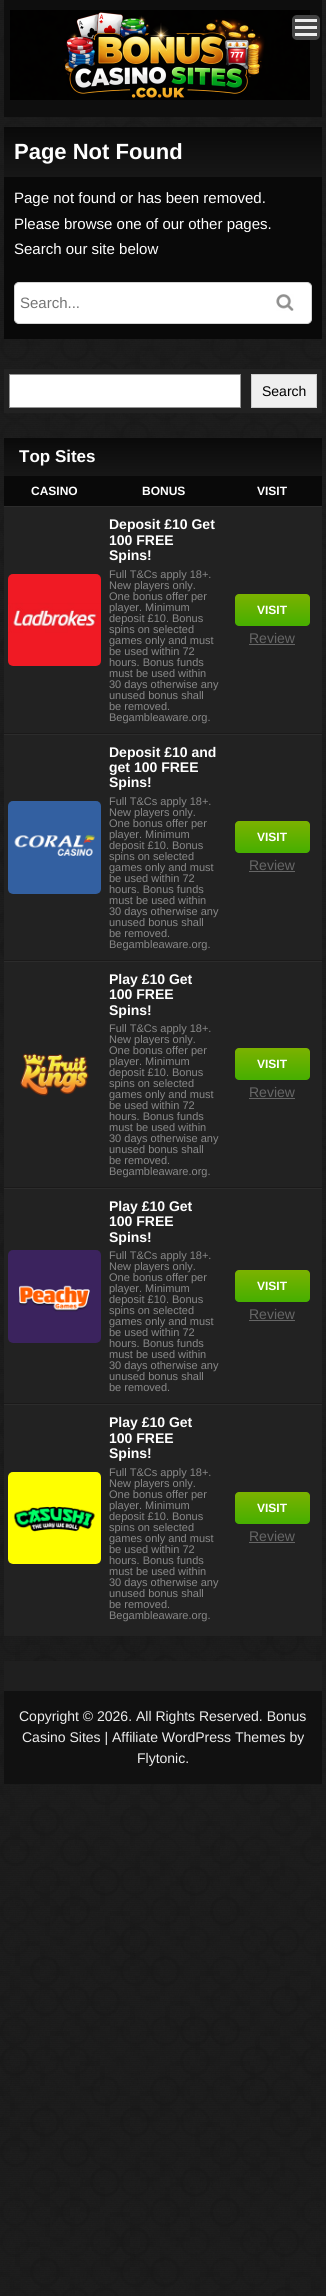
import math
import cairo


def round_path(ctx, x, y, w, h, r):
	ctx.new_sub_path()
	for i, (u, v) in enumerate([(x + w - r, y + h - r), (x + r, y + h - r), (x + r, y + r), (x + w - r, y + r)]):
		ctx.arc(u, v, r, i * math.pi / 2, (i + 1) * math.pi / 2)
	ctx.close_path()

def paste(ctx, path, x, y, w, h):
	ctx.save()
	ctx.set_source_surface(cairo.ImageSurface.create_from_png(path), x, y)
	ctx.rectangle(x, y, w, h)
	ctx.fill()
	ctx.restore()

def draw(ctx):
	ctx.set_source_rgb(1, 1, 1)
	ctx.paint()
	paste(ctx, 'media/1.png', 0, 0, 326, 2296)
	ctx.set_source_rgb(0.055, 0.055, 0.055)
	ctx.rectangle(4, 0, 318, 117)
	ctx.fill()
	paste(ctx, 'media/2.png', 10, 10, 300, 90)
	ctx.set_source_rgb(0.267, 0.267, 0.267)
	round_path(ctx, 292, 15, 28, 25, 5)
	ctx.fill()
	ctx.set_source_rgb(0.933, 0.933, 0.933)
	ctx.rectangle(295, 19, 22, 3)
	ctx.rectangle(295, 26, 22, 3)
	ctx.rectangle(295, 33, 22, 3)
	ctx.fill()
	ctx.set_source_rgb(0.039, 0.039, 0.039)
	ctx.rectangle(4, 177, 318, 162)
	ctx.fill()
	gradient = cairo.LinearGradient(163, 127, 163, 177)
	gradient.add_color_stop_rgba(0, 0.039, 0.039, 0.039, 1)
	gradient.add_color_stop_rgba(1, 0.09, 0.09, 0.09, 1)
	ctx.set_source(gradient)
	ctx.rectangle(4, 127, 318, 50)
	ctx.fill()
	ctx.select_font_face('Arimo', cairo.FONT_SLANT_NORMAL, cairo.FONT_WEIGHT_BOLD)
	ctx.set_font_size(22)
	ctx.set_source_rgb(1, 1, 1)
	ctx.move_to(14, 159)
	ctx.show_text('Page Not Found')
	ctx.select_font_face('Arimo')
	ctx.set_font_size(15)
	for x, y, s in [
		(14, 203, 'Page not found or has been removed.'),
		(14, 229, 'Please browse one of our other pages.'),
		(14, 254, 'Search our site below'),
	]:
		ctx.move_to(x, y)
		ctx.show_text(s)
	round_path(ctx, 14.5, 282.5, 297, 41, 4.5)
	ctx.fill_preserve()
	ctx.set_source_rgb(0.835, 0.835, 0.835)
	ctx.set_line_width(1)
	ctx.stroke()
	ctx.set_source_rgb(0.459, 0.459, 0.459)
	ctx.move_to(20, 308)
	ctx.show_text('Search...')
	paste(ctx, 'media/3.png', 276, 294, 18, 17)
	ctx.set_source_rgb(0.133, 0.133, 0.133)
	ctx.rectangle(4, 369, 318, 44)
	ctx.fill()
	ctx.set_source_rgb(1, 1, 1)
	ctx.rectangle(9.5, 374.5, 231, 33)
	ctx.fill_preserve()
	ctx.set_source_rgb(0.58, 0.58, 0.58)
	ctx.stroke()
	ctx.set_source_rgb(0.937, 0.937, 0.937)
	ctx.rectangle(251.5, 374.5, 65, 33)
	ctx.fill_preserve()
	ctx.set_source_rgb(0.8, 0.8, 0.8)
	ctx.stroke()
	ctx.set_font_size(14)
	ctx.set_source_rgb(0, 0, 0)
	ctx.move_to(262, 396)
	ctx.show_text('Search')
	ctx.set_source_rgb(0.133, 0.133, 0.133)
	ctx.rectangle(4, 507, 318, 1129)
	ctx.fill()
	gradient = cairo.LinearGradient(163, 438, 163, 476)
	gradient.add_color_stop_rgba(0, 0.039, 0.039, 0.039, 1)
	gradient.add_color_stop_rgba(1, 0.09, 0.09, 0.09, 1)
	ctx.set_source(gradient)
	ctx.rectangle(4, 438, 318, 38)
	ctx.fill()
	ctx.select_font_face('Arimo', cairo.FONT_SLANT_NORMAL, cairo.FONT_WEIGHT_BOLD)
	ctx.set_font_size(17)
	ctx.set_source_rgb(1, 1, 1)
	ctx.move_to(19, 462)
	ctx.show_text('Top Sites')
	ctx.set_source_rgb(0.039, 0.039, 0.039)
	ctx.rectangle(4, 476, 318, 30)
	ctx.fill()
	ctx.set_font_size(12)
	ctx.set_source_rgb(1, 1, 1)
	for x, y, s in [
		(31, 495, 'CASINO'),
		(142, 495, 'BONUS'),
		(257, 495, 'VISIT'),
	]:
		ctx.move_to(x, y)
		ctx.show_text(s)
	ctx.set_source_rgb(0.173, 0.173, 0.173)
	ctx.rectangle(4, 506, 318, 1)
	ctx.fill()
	ctx.set_source_rgb(0.106, 0.102, 0.102)
	ctx.rectangle(4, 733, 318, 1)
	ctx.fill()
	paste(ctx, 'media/4.png', 8, 574, 93, 92)
	ctx.set_font_size(14)
	ctx.set_source_rgb(1, 1, 1)
	for x, y, s in [
		(109, 529, 'Deposit £10 Get'),
		(109, 545, '100 FREE'),
		(109, 560, 'Spins!'),
	]:
		ctx.move_to(x, y)
		ctx.show_text(s)
	ctx.select_font_face('Arimo')
	ctx.set_font_size(11)
	ctx.set_source_rgb(0.533, 0.533, 0.533)
	for x, y, s in [
		(109, 578, 'Full T&Cs apply 18+.'),
		(109, 589, 'New players only.'),
		(109, 600, 'One bonus offer per'),
		(109, 611, 'player. Minimum'),
		(109, 622, 'deposit £10. Bonus'),
		(109, 633, 'spins on selected'),
		(109, 644, 'games only and must'),
		(109, 655, 'be used within 72'),
		(109, 666, 'hours. Bonus funds'),
		(109, 677, 'must be used within'),
		(109, 688, '30 days otherwise any'),
		(109, 699, 'unused bonus shall'),
		(109, 710, 'be removed.'),
		(109, 721, 'Begambleaware.org.'),
	]:
		ctx.move_to(x, y)
		ctx.show_text(s)
	gradient = cairo.LinearGradient(273, 594, 273, 626)
	gradient.add_color_stop_rgba(0, 0.486, 0.698, 0, 1)
	gradient.add_color_stop_rgba(1, 0.275, 0.686, 0, 1)
	ctx.set_source(gradient)
	round_path(ctx, 235, 594, 75, 32, 4)
	ctx.fill()
	ctx.select_font_face('Arimo', cairo.FONT_SLANT_NORMAL, cairo.FONT_WEIGHT_BOLD)
	ctx.set_font_size(12)
	ctx.set_source_rgb(1, 1, 1)
	ctx.move_to(257, 614)
	ctx.show_text('VISIT')
	ctx.select_font_face('Arimo')
	ctx.set_font_size(14)
	ctx.set_source_rgb(0.4, 0.4, 0.4)
	ctx.move_to(249, 643)
	ctx.show_text('Review')
	ctx.rectangle(249, 644, 46, 1)
	ctx.fill()
	ctx.set_source_rgb(0.173, 0.173, 0.173)
	ctx.rectangle(4, 734, 318, 1)
	ctx.fill()
	ctx.set_source_rgb(0.106, 0.102, 0.102)
	ctx.rectangle(4, 960, 318, 1)
	ctx.fill()
	paste(ctx, 'media/5.png', 8, 801, 93, 93)
	ctx.select_font_face('Arimo', cairo.FONT_SLANT_NORMAL, cairo.FONT_WEIGHT_BOLD)
	ctx.set_source_rgb(1, 1, 1)
	for x, y, s in [
		(109, 757, 'Deposit £10 and'),
		(109, 772, 'get 100 FREE'),
		(109, 787, 'Spins!'),
	]:
		ctx.move_to(x, y)
		ctx.show_text(s)
	ctx.select_font_face('Arimo')
	ctx.set_font_size(11)
	ctx.set_source_rgb(0.533, 0.533, 0.533)
	for x, y, s in [
		(109, 805, 'Full T&Cs apply 18+.'),
		(109, 816, 'New players only.'),
		(109, 827, 'One bonus offer per'),
		(109, 838, 'player. Minimum'),
		(109, 849, 'deposit £10. Bonus'),
		(109, 860, 'spins on selected'),
		(109, 871, 'games only and must'),
		(109, 882, 'be used within 72'),
		(109, 893, 'hours. Bonus funds'),
		(109, 904, 'must be used within'),
		(109, 915, '30 days otherwise any'),
		(109, 926, 'unused bonus shall'),
		(109, 937, 'be removed.'),
		(109, 948, 'Begambleaware.org.'),
	]:
		ctx.move_to(x, y)
		ctx.show_text(s)
	gradient = cairo.LinearGradient(273, 821, 273, 853)
	gradient.add_color_stop_rgba(0, 0.486, 0.698, 0, 1)
	gradient.add_color_stop_rgba(1, 0.275, 0.686, 0, 1)
	ctx.set_source(gradient)
	round_path(ctx, 235, 821, 75, 32, 4)
	ctx.fill()
	ctx.select_font_face('Arimo', cairo.FONT_SLANT_NORMAL, cairo.FONT_WEIGHT_BOLD)
	ctx.set_font_size(12)
	ctx.set_source_rgb(1, 1, 1)
	ctx.move_to(257, 841)
	ctx.show_text('VISIT')
	ctx.select_font_face('Arimo')
	ctx.set_font_size(14)
	ctx.set_source_rgb(0.4, 0.4, 0.4)
	ctx.move_to(249, 870)
	ctx.show_text('Review')
	ctx.rectangle(249, 871, 46, 1)
	ctx.fill()
	ctx.set_source_rgb(0.173, 0.173, 0.173)
	ctx.rectangle(4, 961, 318, 1)
	ctx.fill()
	ctx.set_source_rgb(0.106, 0.102, 0.102)
	ctx.rectangle(4, 1187, 318, 1)
	ctx.fill()
	paste(ctx, 'media/6.png', 20, 1053, 69, 43)
	ctx.select_font_face('Arimo', cairo.FONT_SLANT_NORMAL, cairo.FONT_WEIGHT_BOLD)
	ctx.set_source_rgb(1, 1, 1)
	for x, y, s in [
		(109, 984, 'Play £10 Get'),
		(109, 999, '100 FREE'),
		(109, 1015, 'Spins!'),
	]:
		ctx.move_to(x, y)
		ctx.show_text(s)
	ctx.select_font_face('Arimo')
	ctx.set_font_size(11)
	ctx.set_source_rgb(0.533, 0.533, 0.533)
	for x, y, s in [
		(109, 1032, 'Full T&Cs apply 18+.'),
		(109, 1043, 'New players only.'),
		(109, 1054, 'One bonus offer per'),
		(109, 1065, 'player. Minimum'),
		(109, 1076, 'deposit £10. Bonus'),
		(109, 1087, 'spins on selected'),
		(109, 1098, 'games only and must'),
		(109, 1109, 'be used within 72'),
		(109, 1120, 'hours. Bonus funds'),
		(109, 1131, 'must be used within'),
		(109, 1142, '30 days otherwise any'),
		(109, 1153, 'unused bonus shall'),
		(109, 1164, 'be removed.'),
		(109, 1175, 'Begambleaware.org.'),
	]:
		ctx.move_to(x, y)
		ctx.show_text(s)
	gradient = cairo.LinearGradient(273, 1048, 273, 1080)
	gradient.add_color_stop_rgba(0, 0.486, 0.698, 0, 1)
	gradient.add_color_stop_rgba(1, 0.275, 0.686, 0, 1)
	ctx.set_source(gradient)
	round_path(ctx, 235, 1048, 75, 32, 4)
	ctx.fill()
	ctx.select_font_face('Arimo', cairo.FONT_SLANT_NORMAL, cairo.FONT_WEIGHT_BOLD)
	ctx.set_font_size(12)
	ctx.set_source_rgb(1, 1, 1)
	ctx.move_to(257, 1068)
	ctx.show_text('VISIT')
	ctx.select_font_face('Arimo')
	ctx.set_font_size(14)
	ctx.set_source_rgb(0.4, 0.4, 0.4)
	ctx.move_to(249, 1097)
	ctx.show_text('Review')
	ctx.rectangle(249, 1098, 46, 1)
	ctx.fill()
	ctx.set_source_rgb(0.173, 0.173, 0.173)
	ctx.rectangle(4, 1188, 318, 1)
	ctx.fill()
	ctx.set_source_rgb(0.106, 0.102, 0.102)
	ctx.rectangle(4, 1403, 318, 1)
	ctx.fill()
	paste(ctx, 'media/7.png', 8, 1250, 93, 93)
	ctx.select_font_face('Arimo', cairo.FONT_SLANT_NORMAL, cairo.FONT_WEIGHT_BOLD)
	ctx.set_source_rgb(1, 1, 1)
	for x, y, s in [
		(109, 1211, 'Play £10 Get'),
		(109, 1226, '100 FREE'),
		(109, 1242, 'Spins!'),
	]:
		ctx.move_to(x, y)
		ctx.show_text(s)
	ctx.select_font_face('Arimo')
	ctx.set_font_size(11)
	ctx.set_source_rgb(0.533, 0.533, 0.533)
	for x, y, s in [
		(109, 1259, 'Full T&Cs apply 18+.'),
		(109, 1270, 'New players only.'),
		(109, 1281, 'One bonus offer per'),
		(109, 1292, 'player. Minimum'),
		(109, 1303, 'deposit £10. Bonus'),
		(109, 1314, 'spins on selected'),
		(109, 1325, 'games only and must'),
		(109, 1336, 'be used within 72'),
		(109, 1347, 'hours. Bonus funds'),
		(109, 1358, 'must be used within'),
		(109, 1369, '30 days otherwise any'),
		(109, 1380, 'unused bonus shall'),
		(109, 1391, 'be removed.'),
	]:
		ctx.move_to(x, y)
		ctx.show_text(s)
	gradient = cairo.LinearGradient(273, 1270, 273, 1302)
	gradient.add_color_stop_rgba(0, 0.486, 0.698, 0, 1)
	gradient.add_color_stop_rgba(1, 0.275, 0.686, 0, 1)
	ctx.set_source(gradient)
	round_path(ctx, 235, 1270, 75, 32, 4)
	ctx.fill()
	ctx.select_font_face('Arimo', cairo.FONT_SLANT_NORMAL, cairo.FONT_WEIGHT_BOLD)
	ctx.set_font_size(12)
	ctx.set_source_rgb(1, 1, 1)
	ctx.move_to(257, 1290)
	ctx.show_text('VISIT')
	ctx.select_font_face('Arimo')
	ctx.set_font_size(14)
	ctx.set_source_rgb(0.4, 0.4, 0.4)
	ctx.move_to(249, 1319)
	ctx.show_text('Review')
	ctx.rectangle(249, 1320, 46, 1)
	ctx.fill()
	ctx.set_source_rgb(0.173, 0.173, 0.173)
	ctx.rectangle(4, 1404, 318, 1)
	ctx.fill()
	paste(ctx, 'media/8.png', 8, 1472, 93, 92)
	ctx.select_font_face('Arimo', cairo.FONT_SLANT_NORMAL, cairo.FONT_WEIGHT_BOLD)
	ctx.set_source_rgb(1, 1, 1)
	for x, y, s in [
		(109, 1427, 'Play £10 Get'),
		(109, 1443, '100 FREE'),
		(109, 1458, 'Spins!'),
	]:
		ctx.move_to(x, y)
		ctx.show_text(s)
	ctx.select_font_face('Arimo')
	ctx.set_font_size(11)
	ctx.set_source_rgb(0.533, 0.533, 0.533)
	for x, y, s in [
		(109, 1476, 'Full T&Cs apply 18+.'),
		(109, 1487, 'New players only.'),
		(109, 1498, 'One bonus offer per'),
		(109, 1509, 'player. Minimum'),
		(109, 1520, 'deposit £10. Bonus'),
		(109, 1531, 'spins on selected'),
		(109, 1542, 'games only and must'),
		(109, 1553, 'be used within 72'),
		(109, 1564, 'hours. Bonus funds'),
		(109, 1575, 'must be used within'),
		(109, 1586, '30 days otherwise any'),
		(109, 1597, 'unused bonus shall'),
		(109, 1608, 'be removed.'),
		(109, 1619, 'Begambleaware.org.'),
	]:
		ctx.move_to(x, y)
		ctx.show_text(s)
	gradient = cairo.LinearGradient(273, 1492, 273, 1524)
	gradient.add_color_stop_rgba(0, 0.486, 0.698, 0, 1)
	gradient.add_color_stop_rgba(1, 0.275, 0.686, 0, 1)
	ctx.set_source(gradient)
	round_path(ctx, 235, 1492, 75, 32, 4)
	ctx.fill()
	ctx.select_font_face('Arimo', cairo.FONT_SLANT_NORMAL, cairo.FONT_WEIGHT_BOLD)
	ctx.set_font_size(12)
	ctx.set_source_rgb(1, 1, 1)
	ctx.move_to(257, 1512)
	ctx.show_text('VISIT')
	ctx.select_font_face('Arimo')
	ctx.set_font_size(14)
	ctx.set_source_rgb(0.4, 0.4, 0.4)
	ctx.move_to(249, 1541)
	ctx.show_text('Review')
	ctx.rectangle(249, 1542, 46, 1)
	ctx.fill()
	ctx.set_source_rgb(0.122, 0.122, 0.122)
	ctx.rectangle(4, 1661, 318, 30)
	ctx.fill()
	ctx.set_source_rgb(0.067, 0.067, 0.067)
	ctx.rectangle(4, 1691, 318, 93)
	ctx.fill()
	ctx.set_source_rgb(0.929, 0.929, 0.929)
	for x, y, s in [
		(19, 1721, 'Copyright © 2026. All Rights Reserved. Bonus'),
		(22, 1742, 'Casino Sites | Affiliate WordPress Themes by'),
		(137, 1763, 'Flytonic.'),
	]:
		ctx.move_to(x, y)
		ctx.show_text(s)


surface = cairo.ImageSurface(cairo.FORMAT_RGB24, 326, 2296)
ctx = cairo.Context(surface)
options = cairo.FontOptions()
options.set_hint_metrics(cairo.HINT_METRICS_OFF)
options.set_hint_style(cairo.HINT_STYLE_NONE)
ctx.set_font_options(options)
ctx.set_miter_limit(4)
draw(ctx)
surface.write_to_png('image.png')
